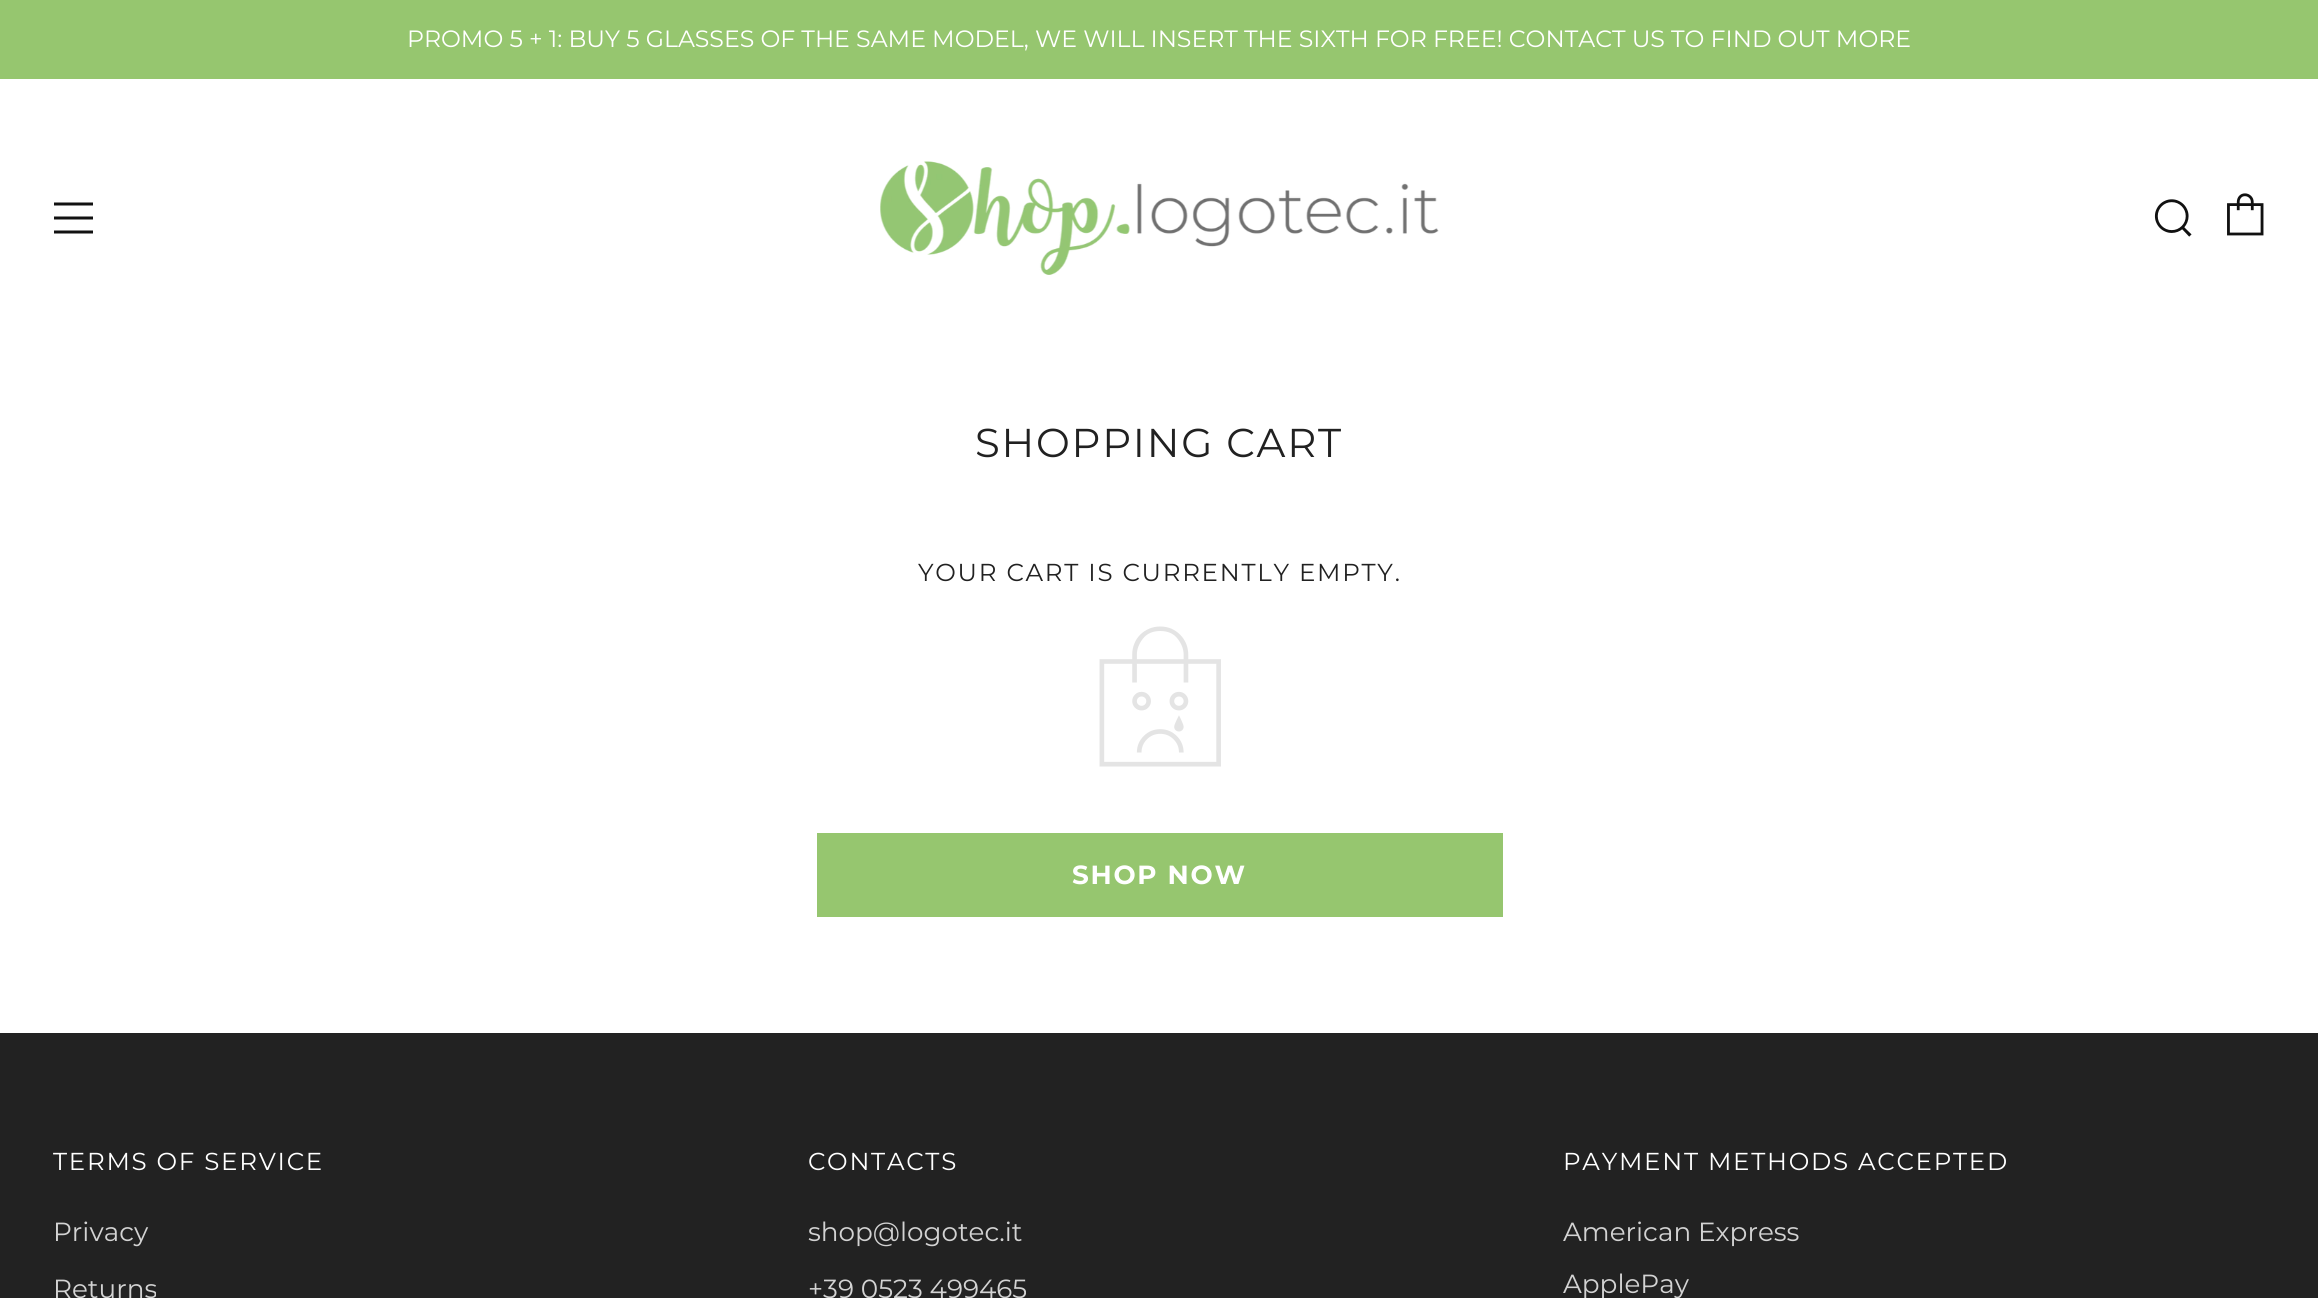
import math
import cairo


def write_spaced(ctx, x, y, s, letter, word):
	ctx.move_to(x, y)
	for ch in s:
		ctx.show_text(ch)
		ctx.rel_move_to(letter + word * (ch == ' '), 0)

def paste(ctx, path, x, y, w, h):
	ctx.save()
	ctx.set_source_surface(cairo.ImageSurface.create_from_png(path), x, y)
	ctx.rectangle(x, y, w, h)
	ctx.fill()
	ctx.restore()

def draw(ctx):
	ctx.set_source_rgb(1, 1, 1)
	ctx.paint()
	ctx.set_source_rgb(0.588, 0.776, 0.435)
	ctx.rectangle(0, 0, 2318, 79)
	ctx.fill()
	ctx.select_font_face('Montserrat')
	ctx.set_font_size(23.62)
	ctx.set_source_rgb(1, 1, 1)
	ctx.move_to(407, 47)
	ctx.show_text('PROMO 5 + 1: BUY 5 GLASSES OF THE SAME MODEL, WE WILL INSERT THE SIXTH FOR FREE! CONTACT US TO FIND OUT MORE')
	ctx.set_source_rgb(0.067, 0.067, 0.067)
	ctx.new_path()
	ctx.move_to(54, 205.5)
	ctx.line_to(93, 205.5)
	ctx.line_to(93, 202.5)
	ctx.line_to(54, 202.5)
	ctx.close_path()
	ctx.move_to(54, 233.5)
	ctx.line_to(93, 233.5)
	ctx.line_to(93, 230.5)
	ctx.line_to(54, 230.5)
	ctx.close_path()
	ctx.move_to(54, 219.5)
	ctx.line_to(93, 219.5)
	ctx.line_to(93, 216.5)
	ctx.line_to(54, 216.5)
	ctx.close_path()
	ctx.fill()
	paste(ctx, 'media/1.png', 880, 161, 559, 114)
	paste(ctx, 'media/2.png', 2154, 199, 38, 38)
	paste(ctx, 'media/3.png', 2227, 193, 37, 43)
	ctx.set_font_size(40.25)
	ctx.set_source_rgb(0.129, 0.129, 0.129)
	write_spaced(ctx, 975, 457, 'SHOPPING CART', 1.75, 0)
	ctx.set_font_size(24.5)
	write_spaced(ctx, 918, 581, 'YOUR CART IS CURRENTLY EMPTY.', 1.75, 0)
	paste(ctx, 'media/4.png', 1099, 626, 122, 141)
	ctx.set_source_rgb(0.588, 0.776, 0.435)
	ctx.rectangle(817, 833, 686, 84)
	ctx.fill()
	ctx.select_font_face('Montserrat', cairo.FONT_SLANT_NORMAL, cairo.FONT_WEIGHT_BOLD)
	ctx.set_font_size(26.25)
	ctx.set_source_rgb(1, 1, 1)
	write_spaced(ctx, 1072, 884, 'SHOP NOW', 1.75, 0)
	ctx.set_source_rgb(0.133, 0.133, 0.133)
	ctx.rectangle(0, 1033, 2318, 265)
	ctx.fill()
	ctx.select_font_face('Montserrat')
	ctx.set_font_size(24.5)
	ctx.set_source_rgb(1, 1, 1)
	write_spaced(ctx, 53, 1170, 'TERMS OF SERVICE', 1.75, 0)
	ctx.set_font_size(26.25)
	ctx.set_source_rgb(0.827, 0.827, 0.827)
	ctx.move_to(53, 1241)
	ctx.show_text('Privacy')
	ctx.move_to(53, 1298)
	ctx.show_text('Returns')
	ctx.set_font_size(24.5)
	ctx.set_source_rgb(1, 1, 1)
	write_spaced(ctx, 808, 1170, 'CONTACTS', 1.75, 0)
	ctx.set_font_size(26.25)
	ctx.set_source_rgb(0.827, 0.827, 0.827)
	ctx.move_to(808, 1241)
	ctx.show_text('shop@logotec.it')
	ctx.move_to(808, 1298)
	ctx.show_text('+39 0523 499465')
	ctx.set_font_size(24.5)
	ctx.set_source_rgb(1, 1, 1)
	write_spaced(ctx, 1563, 1170, 'PAYMENT METHODS ACCEPTED', 1.75, 0)
	ctx.set_font_size(26.25)
	ctx.set_source_rgb(0.827, 0.827, 0.827)
	ctx.move_to(1563, 1241)
	ctx.show_text('American Express')
	ctx.move_to(1563, 1293)
	ctx.show_text('ApplePay')


surface = cairo.ImageSurface(cairo.FORMAT_RGB24, 2318, 1298)
ctx = cairo.Context(surface)
options = cairo.FontOptions()
options.set_hint_metrics(cairo.HINT_METRICS_OFF)
options.set_hint_style(cairo.HINT_STYLE_NONE)
ctx.set_font_options(options)
ctx.set_miter_limit(4)
draw(ctx)
surface.write_to_png('image.png')
